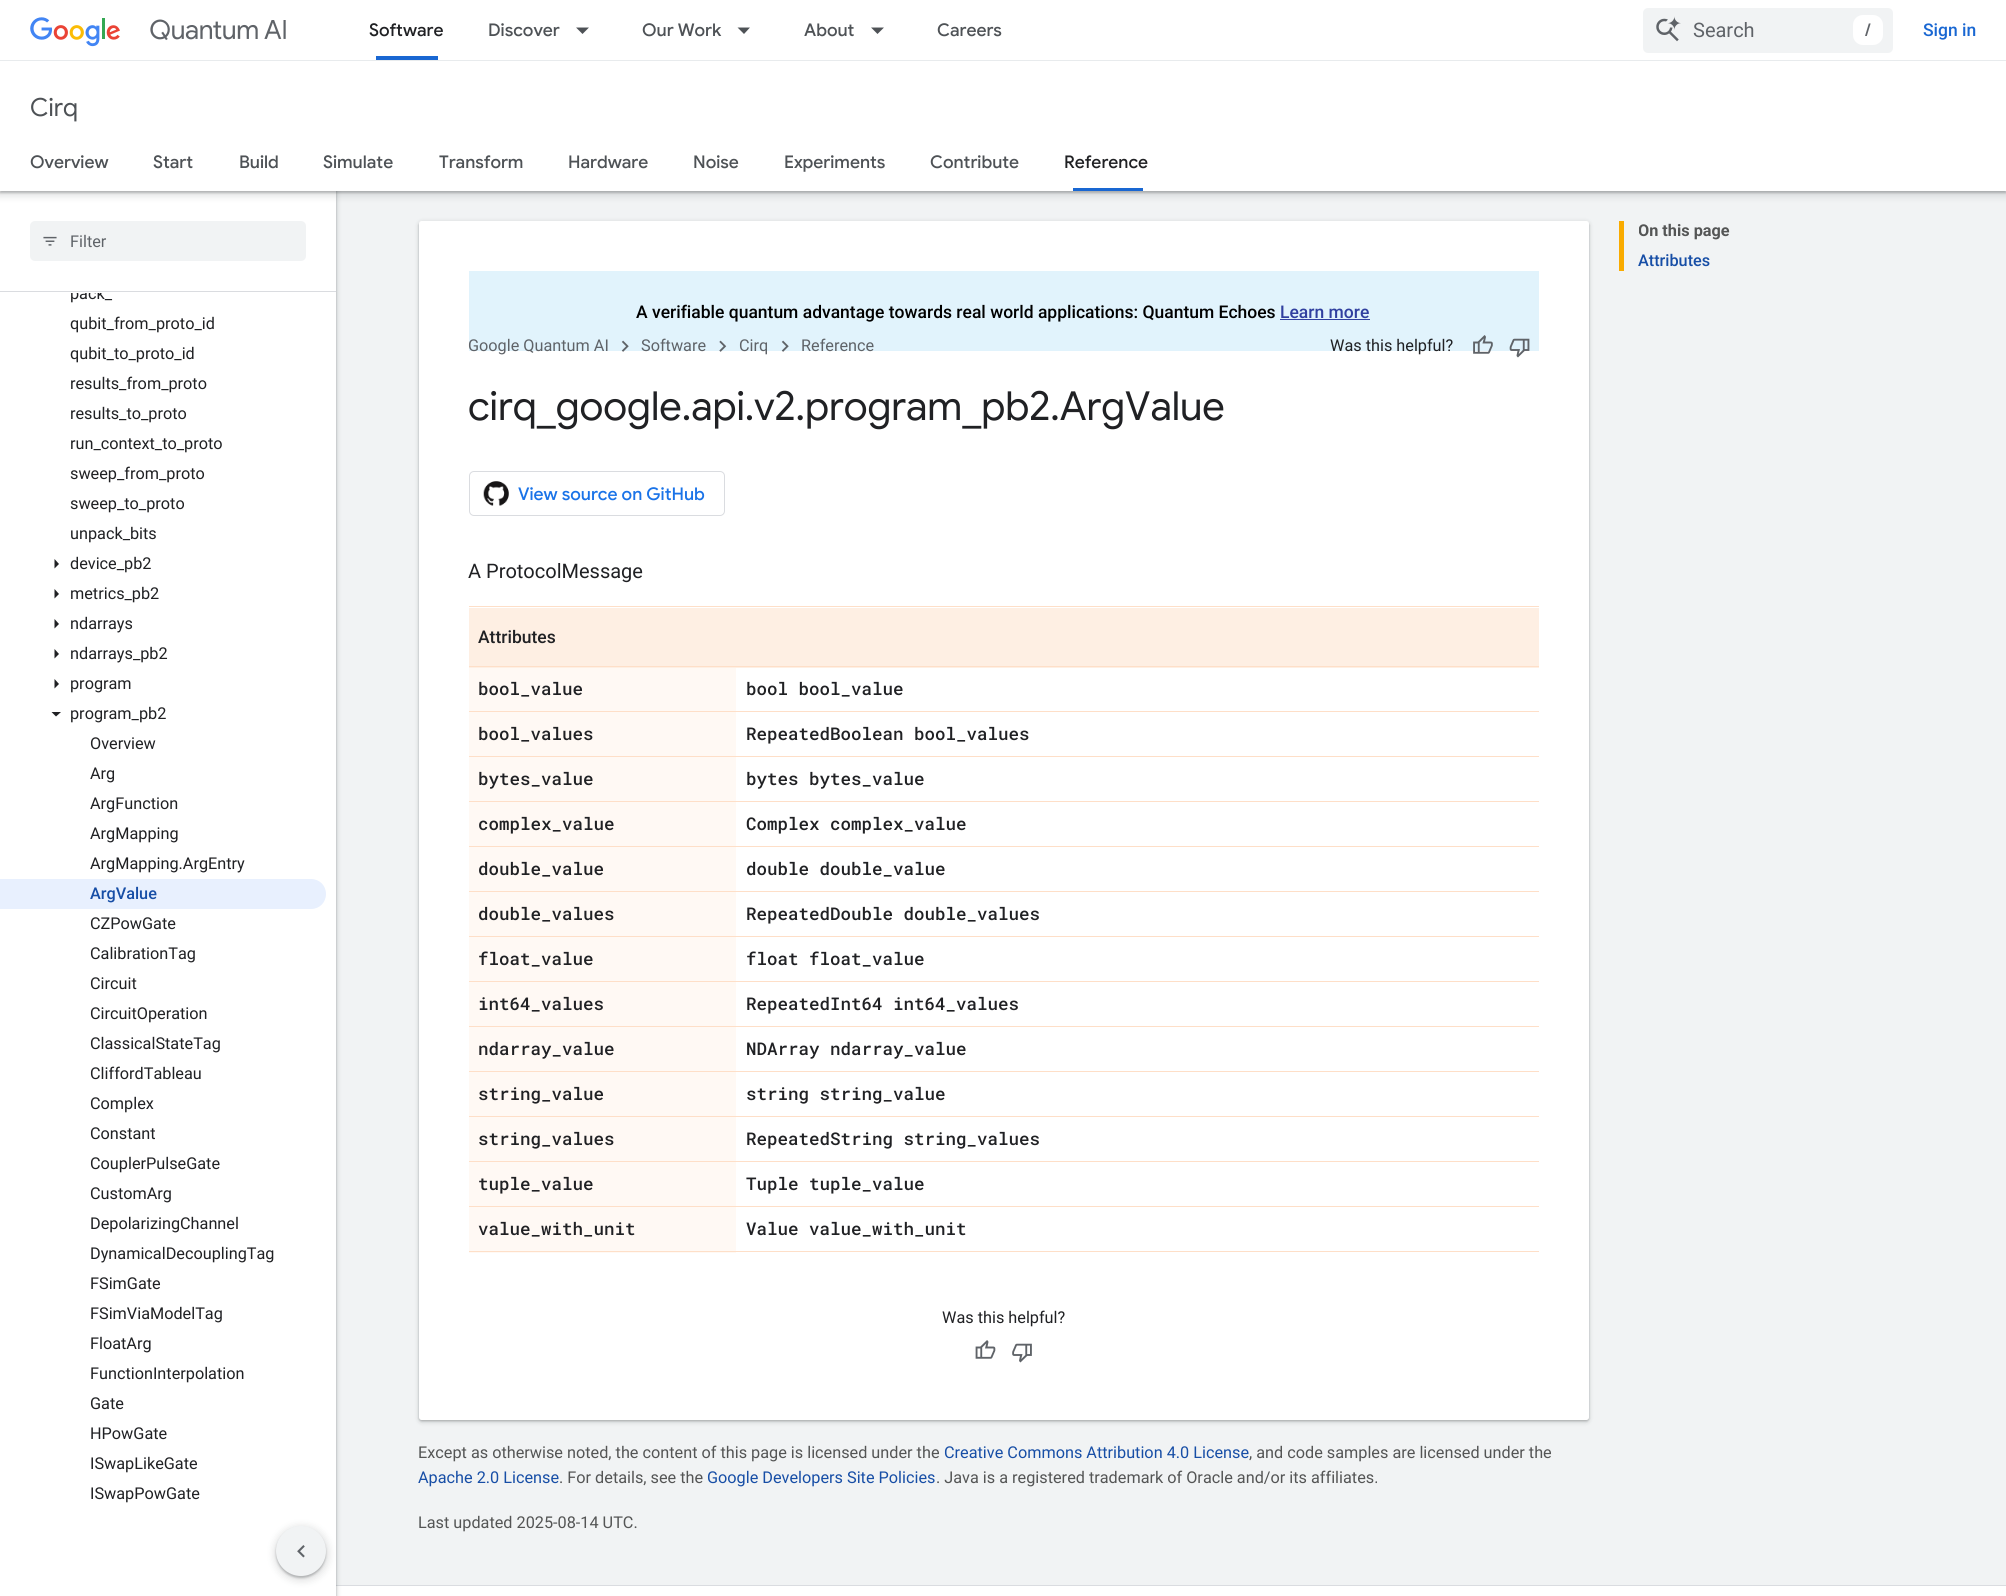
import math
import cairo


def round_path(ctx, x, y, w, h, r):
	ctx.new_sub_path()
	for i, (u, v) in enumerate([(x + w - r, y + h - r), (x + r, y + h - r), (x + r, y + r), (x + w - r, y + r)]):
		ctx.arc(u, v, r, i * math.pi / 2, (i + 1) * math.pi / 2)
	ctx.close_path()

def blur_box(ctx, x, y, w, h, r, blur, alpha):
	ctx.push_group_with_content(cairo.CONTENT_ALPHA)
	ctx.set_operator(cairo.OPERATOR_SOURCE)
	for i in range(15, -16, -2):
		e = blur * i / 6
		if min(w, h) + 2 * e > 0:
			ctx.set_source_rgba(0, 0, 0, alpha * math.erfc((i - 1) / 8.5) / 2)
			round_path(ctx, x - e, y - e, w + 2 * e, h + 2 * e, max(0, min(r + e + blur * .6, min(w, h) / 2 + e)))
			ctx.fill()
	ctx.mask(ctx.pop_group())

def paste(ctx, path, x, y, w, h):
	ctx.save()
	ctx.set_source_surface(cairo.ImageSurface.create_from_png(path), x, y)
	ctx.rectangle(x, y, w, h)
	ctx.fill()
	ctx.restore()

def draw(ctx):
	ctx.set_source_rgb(0.945, 0.953, 0.957)
	ctx.paint()
	ctx.set_source_rgb(0.855, 0.863, 0.878)
	ctx.rectangle(336, 1585, 1670, 1)
	ctx.fill()
	ctx.set_source_rgb(1, 1, 1)
	ctx.rectangle(336, 1586, 1670, 10)
	ctx.fill()
	ctx.set_source_rgb(0.235, 0.251, 0.263)
	blur_box(ctx, -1, 0, 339, 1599, 0, 2, 0.15)
	blur_box(ctx, 0, 1, 336, 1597, 0, 1, 0.3)
	ctx.set_source_rgb(1, 1, 1)
	ctx.rectangle(0, 293, 336, 1303)
	ctx.fill()
	ctx.select_font_face('Roboto')
	ctx.set_font_size(16.25)
	ctx.set_source_rgb(0.125, 0.129, 0.141)
	ctx.move_to(70, 299)
	ctx.show_text('pack_')
	ctx.set_source_rgb(1, 1, 1)
	ctx.rectangle(0, 191, 336, 102)
	ctx.fill()
	ctx.set_source_rgb(0.235, 0.251, 0.263)
	blur_box(ctx, -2, 61, 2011, 135, 0, 4, 0.15)
	blur_box(ctx, 0, 63, 2006, 130, 0, 1, 0.3)
	ctx.set_source_rgb(1, 1, 1)
	ctx.rectangle(0, 0, 2006, 60)
	ctx.fill()
	ctx.set_source_rgb(0.91, 0.918, 0.929)
	ctx.rectangle(0, 60, 2006, 1)
	ctx.fill()
	paste(ctx, 'media/1.png', 30, 17, 256, 30)
	ctx.select_font_face('Google Sans Medium')
	ctx.set_font_size(17.5)
	ctx.set_source_rgb(0.125, 0.129, 0.141)
	ctx.move_to(369, 36)
	ctx.show_text('Software')
	ctx.set_source_rgb(0.098, 0.404, 0.824)
	ctx.rectangle(376, 56, 62, 4)
	ctx.fill()
	ctx.set_source_rgb(0.306, 0.322, 0.337)
	ctx.move_to(488, 36)
	ctx.show_text('Discover')
	ctx.new_path()
	ctx.move_to(576, 27.5)
	ctx.line_to(589, 27.5)
	ctx.line_to(582.5, 34)
	ctx.close_path()
	ctx.fill()
	ctx.move_to(642, 36)
	ctx.show_text('Our Work')
	ctx.new_path()
	ctx.move_to(737.5, 27.5)
	ctx.line_to(750, 27.5)
	ctx.line_to(744, 34)
	ctx.close_path()
	ctx.fill()
	ctx.move_to(804, 36)
	ctx.show_text('About')
	ctx.new_path()
	ctx.move_to(871, 27.5)
	ctx.line_to(884, 27.5)
	ctx.line_to(877.5, 34)
	ctx.close_path()
	ctx.fill()
	ctx.move_to(937, 36)
	ctx.show_text('Careers')
	ctx.set_source_rgb(0.945, 0.953, 0.957)
	round_path(ctx, 1643, 8, 250, 45, 5)
	ctx.fill()
	paste(ctx, 'media/2.png', 1656, 16, 25, 26)
	ctx.select_font_face('Roboto')
	ctx.set_font_size(20)
	ctx.set_source_rgb(0.373, 0.388, 0.408)
	ctx.move_to(1693, 37)
	ctx.show_text('Search')
	ctx.set_source_rgb(1, 1, 1)
	round_path(ctx, 1853, 15, 30, 30, 10)
	ctx.fill()
	ctx.select_font_face('Google Sans Medium')
	ctx.set_font_size(17.5)
	ctx.set_source_rgb(0.373, 0.388, 0.408)
	ctx.move_to(1865, 36)
	ctx.show_text('/')
	ctx.select_font_face('Roboto Medium')
	ctx.set_source_rgb(0.098, 0.404, 0.824)
	ctx.move_to(1923, 36)
	ctx.show_text('Sign in')
	ctx.set_source_rgb(1, 1, 1)
	ctx.rectangle(0, 61, 2006, 130)
	ctx.fill()
	ctx.select_font_face('Google Sans')
	ctx.set_font_size(25)
	ctx.set_source_rgb(0.306, 0.322, 0.337)
	ctx.move_to(30, 116)
	ctx.show_text('Cirq')
	ctx.select_font_face('Google Sans Medium')
	ctx.set_font_size(17.5)
	for x, y, s in [
		(30, 168, 'Overview'),
		(153, 168, 'Start'),
		(239, 168, 'Build'),
		(323, 168, 'Simulate'),
		(439, 168, 'Transform'),
		(568, 168, 'Hardware'),
		(693, 168, 'Noise'),
		(784, 168, 'Experiments'),
		(930, 168, 'Contribute'),
	]:
		ctx.move_to(x, y)
		ctx.show_text(s)
	ctx.set_source_rgb(0.125, 0.129, 0.141)
	ctx.move_to(1064, 168)
	ctx.show_text('Reference')
	ctx.set_source_rgb(0.098, 0.404, 0.824)
	ctx.rectangle(1073, 188, 70, 3)
	ctx.fill()
	ctx.set_source_rgb(0.855, 0.863, 0.878)
	ctx.rectangle(0, 291, 336, 1)
	ctx.fill()
	ctx.set_source_rgb(0.945, 0.953, 0.957)
	round_path(ctx, 30, 221, 276, 40, 5)
	ctx.fill()
	paste(ctx, 'media/3.png', 43, 236, 14, 10)
	ctx.select_font_face('Roboto')
	ctx.set_font_size(16.25)
	ctx.set_source_rgb(0.373, 0.388, 0.408)
	ctx.move_to(70, 247)
	ctx.show_text('Filter')
	ctx.set_source_rgb(0.125, 0.129, 0.141)
	for x, y, s in [
		(70, 329, 'qubit_from_proto_id'),
		(70, 359, 'qubit_to_proto_id'),
		(70, 389, 'results_from_proto'),
		(70, 419, 'results_to_proto'),
		(70, 449, 'run_context_to_proto'),
		(70, 479, 'sweep_from_proto'),
		(70, 509, 'sweep_to_proto'),
		(70, 539, 'unpack_bits'),
	]:
		ctx.move_to(x, y)
		ctx.show_text(s)
	ctx.new_path()
	ctx.move_to(54.5, 568.5)
	ctx.line_to(54.5, 559)
	ctx.line_to(59, 564)
	ctx.close_path()
	ctx.fill()
	ctx.move_to(70, 569)
	ctx.show_text('device_pb2')
	ctx.new_path()
	ctx.move_to(54.5, 598.5)
	ctx.line_to(54.5, 589)
	ctx.line_to(59, 594)
	ctx.close_path()
	ctx.fill()
	ctx.move_to(70, 599)
	ctx.show_text('metrics_pb2')
	ctx.new_path()
	ctx.move_to(54.5, 628.5)
	ctx.line_to(54.5, 619)
	ctx.line_to(59, 624)
	ctx.close_path()
	ctx.fill()
	ctx.move_to(70, 629)
	ctx.show_text('ndarrays')
	ctx.new_path()
	ctx.move_to(54.5, 658.5)
	ctx.line_to(54.5, 649)
	ctx.line_to(59, 654)
	ctx.close_path()
	ctx.fill()
	ctx.move_to(70, 659)
	ctx.show_text('ndarrays_pb2')
	ctx.new_path()
	ctx.move_to(54.5, 688.5)
	ctx.line_to(54.5, 679)
	ctx.line_to(59, 684)
	ctx.close_path()
	ctx.fill()
	ctx.move_to(70, 689)
	ctx.show_text('program')
	ctx.new_path()
	ctx.move_to(51.5, 712)
	ctx.line_to(61, 712)
	ctx.line_to(56, 716.5)
	ctx.close_path()
	ctx.fill()
	for x, y, s in [
		(70, 719, 'program_pb2'),
		(90, 749, 'Overview'),
		(90, 779, 'Arg'),
		(90, 809, 'ArgFunction'),
		(90, 839, 'ArgMapping'),
		(90, 869, 'ArgMapping.ArgEntry'),
	]:
		ctx.move_to(x, y)
		ctx.show_text(s)
	ctx.set_source_rgb(0.91, 0.941, 0.996)
	ctx.new_path()
	ctx.move_to(0, 879)
	ctx.line_to(311, 879)
	ctx.curve_to(319.5, 879, 326, 885.5, 326, 894)
	ctx.curve_to(326, 902.5, 319.5, 909, 311, 909)
	ctx.line_to(0, 909)
	ctx.close_path()
	ctx.fill()
	ctx.select_font_face('Roboto Medium')
	ctx.set_source_rgb(0.09, 0.306, 0.651)
	ctx.move_to(90, 899)
	ctx.show_text('ArgValue')
	ctx.select_font_face('Roboto')
	ctx.set_source_rgb(0.125, 0.129, 0.141)
	ctx.move_to(90, 929)
	ctx.show_text('CZPowGate')
	ctx.move_to(90, 959)
	ctx.show_text('CalibrationTag')
	ctx.save()
	ctx.rectangle(90, 729, 46, 867)
	ctx.clip()
	ctx.move_to(90, 989)
	ctx.show_text('Circuit')
	ctx.restore()
	for x, y, s in [
		(90, 1019, 'CircuitOperation'),
		(90, 1049, 'ClassicalStateTag'),
		(90, 1079, 'CliffordTableau'),
		(90, 1109, 'Complex'),
		(90, 1139, 'Constant'),
		(90, 1169, 'CouplerPulseGate'),
		(90, 1199, 'CustomArg'),
		(90, 1229, 'DepolarizingChannel'),
		(90, 1259, 'DynamicalDecouplingTag'),
		(90, 1289, 'FSimGate'),
		(90, 1319, 'FSimViaModelTag'),
		(90, 1349, 'FloatArg'),
		(90, 1379, 'FunctionInterpolation'),
		(90, 1409, 'Gate'),
		(90, 1439, 'HPowGate'),
		(90, 1469, 'ISwapLikeGate'),
		(90, 1499, 'ISwapPowGate'),
	]:
		ctx.move_to(x, y)
		ctx.show_text(s)
	ctx.set_source_rgb(0.976, 0.671, 0)
	ctx.rectangle(1619, 221, 5, 50)
	ctx.fill()
	ctx.save()
	ctx.rectangle(1639, 221, 91, 50)
	ctx.clip()
	ctx.select_font_face('Roboto', cairo.FONT_SLANT_NORMAL, cairo.FONT_WEIGHT_BOLD)
	ctx.set_source_rgb(0.329, 0.333, 0.333)
	ctx.move_to(1638, 236)
	ctx.show_text('On this page')
	ctx.restore()
	ctx.select_font_face('Roboto Medium')
	ctx.set_source_rgb(0.09, 0.306, 0.651)
	ctx.move_to(1638, 266)
	ctx.show_text('Attributes')
	ctx.set_source_rgb(0.235, 0.251, 0.263)
	blur_box(ctx, 418, 221, 1172, 1202, 4, 2, 0.15)
	blur_box(ctx, 419, 223, 1170, 1198, 2.5, 1, 0.3)
	ctx.set_source_rgb(1, 1, 1)
	round_path(ctx, 419, 221, 1170, 1199, 2.5)
	ctx.fill()
	ctx.set_source_rgb(0.882, 0.953, 0.988)
	ctx.rectangle(469, 271, 1070, 80)
	ctx.fill()
	ctx.set_font_size(17.5)
	ctx.set_source_rgb(0, 0, 0)
	ctx.move_to(636, 318)
	ctx.show_text('A verifiable quantum advantage towards real world applications: Quantum Echoes')
	ctx.set_source_rgb(0.188, 0.247, 0.624)
	ctx.move_to(1280, 318)
	ctx.show_text('Learn more')
	ctx.rectangle(1280, 319, 90, 1)
	ctx.fill()
	ctx.select_font_face('Roboto')
	ctx.set_font_size(16.25)
	ctx.set_source_rgb(0.373, 0.388, 0.408)
	ctx.move_to(468, 351)
	ctx.show_text('Google Quantum AI')
	paste(ctx, 'media/4.png', 621, 340, 8, 12)
	ctx.move_to(641, 351)
	ctx.show_text('Software')
	paste(ctx, 'media/5.png', 719, 340, 8, 12)
	ctx.move_to(739, 351)
	ctx.show_text('Cirq')
	paste(ctx, 'media/4.png', 781, 340, 8, 12)
	ctx.move_to(801, 351)
	ctx.show_text('Reference')
	ctx.set_source_rgb(0.125, 0.129, 0.141)
	ctx.move_to(1330, 351)
	ctx.show_text('Was this helpful?')
	paste(ctx, 'media/6.png', 1473, 335, 20, 19)
	paste(ctx, 'media/7.png', 1509, 338, 21, 20)
	ctx.select_font_face('Google Sans')
	ctx.set_font_size(40)
	ctx.move_to(468, 420)
	ctx.show_text('cirq_google.api.v2.program_pb2.ArgValue')
	round_path(ctx, 469.5, 471.5, 255, 44, 4.5)
	ctx.set_source_rgb(0.855, 0.863, 0.878)
	ctx.set_line_width(1)
	ctx.stroke()
	paste(ctx, 'media/8.png', 483, 481, 26, 25)
	ctx.select_font_face('Google Sans Medium')
	ctx.set_font_size(17.5)
	ctx.set_source_rgb(0.102, 0.451, 0.91)
	ctx.move_to(518, 500)
	ctx.show_text('View source on GitHub')
	ctx.select_font_face('Roboto')
	ctx.set_font_size(20)
	ctx.set_source_rgb(0.125, 0.129, 0.141)
	ctx.move_to(468, 578)
	ctx.show_text('A ProtocolMessage')
	ctx.set_source_rgb(0.996, 0.937, 0.89)
	ctx.rectangle(469, 608, 1070, 60)
	ctx.fill()
	ctx.set_source_rgb(0.996, 0.875, 0.784)
	ctx.rectangle(469, 606, 1070, 1)
	ctx.rectangle(469, 666, 1070, 1)
	ctx.fill()
	ctx.select_font_face('Roboto Medium')
	ctx.set_font_size(17.5)
	ctx.set_source_rgb(0.125, 0.129, 0.141)
	ctx.move_to(478, 643)
	ctx.show_text('Attributes')
	ctx.set_source_rgb(1, 0.976, 0.957)
	ctx.rectangle(469, 668, 267, 585)
	ctx.fill()
	ctx.set_source_rgb(0.996, 0.875, 0.784)
	ctx.rectangle(469, 711, 1070, 1)
	ctx.fill()
	ctx.select_font_face('Roboto Mono Medium')
	ctx.set_source_rgb(0.125, 0.129, 0.141)
	ctx.move_to(478, 695)
	ctx.show_text('bool_value')
	ctx.move_to(746, 695)
	ctx.show_text('bool bool_value')
	ctx.set_source_rgb(0.996, 0.875, 0.784)
	ctx.rectangle(469, 756, 1070, 1)
	ctx.fill()
	ctx.set_source_rgb(0.125, 0.129, 0.141)
	ctx.move_to(478, 740)
	ctx.show_text('bool_values')
	ctx.move_to(746, 740)
	ctx.show_text('RepeatedBoolean bool_values')
	ctx.set_source_rgb(0.996, 0.875, 0.784)
	ctx.rectangle(469, 801, 1070, 1)
	ctx.fill()
	ctx.set_source_rgb(0.125, 0.129, 0.141)
	ctx.move_to(478, 785)
	ctx.show_text('bytes_value')
	ctx.move_to(746, 785)
	ctx.show_text('bytes bytes_value')
	ctx.set_source_rgb(0.996, 0.875, 0.784)
	ctx.rectangle(469, 846, 1070, 1)
	ctx.fill()
	ctx.set_source_rgb(0.125, 0.129, 0.141)
	ctx.move_to(478, 830)
	ctx.show_text('complex_value')
	ctx.move_to(746, 830)
	ctx.show_text('Complex complex_value')
	ctx.set_source_rgb(0.996, 0.875, 0.784)
	ctx.rectangle(469, 891, 1070, 1)
	ctx.fill()
	ctx.set_source_rgb(0.125, 0.129, 0.141)
	ctx.move_to(478, 875)
	ctx.show_text('double_value')
	ctx.move_to(746, 875)
	ctx.show_text('double double_value')
	ctx.set_source_rgb(0.996, 0.875, 0.784)
	ctx.rectangle(469, 936, 1070, 1)
	ctx.fill()
	ctx.set_source_rgb(0.125, 0.129, 0.141)
	ctx.move_to(478, 920)
	ctx.show_text('double_values')
	ctx.move_to(746, 920)
	ctx.show_text('RepeatedDouble double_values')
	ctx.set_source_rgb(0.996, 0.875, 0.784)
	ctx.rectangle(469, 981, 1070, 1)
	ctx.fill()
	ctx.set_source_rgb(0.125, 0.129, 0.141)
	ctx.move_to(478, 965)
	ctx.show_text('float_value')
	ctx.move_to(746, 965)
	ctx.show_text('float float_value')
	ctx.set_source_rgb(0.996, 0.875, 0.784)
	ctx.rectangle(469, 1026, 1070, 1)
	ctx.fill()
	ctx.set_source_rgb(0.125, 0.129, 0.141)
	ctx.move_to(478, 1010)
	ctx.show_text('int64_values')
	ctx.move_to(746, 1010)
	ctx.show_text('RepeatedInt64 int64_values')
	ctx.set_source_rgb(0.996, 0.875, 0.784)
	ctx.rectangle(469, 1071, 1070, 1)
	ctx.fill()
	ctx.set_source_rgb(0.125, 0.129, 0.141)
	ctx.move_to(478, 1055)
	ctx.show_text('ndarray_value')
	ctx.move_to(746, 1055)
	ctx.show_text('NDArray ndarray_value')
	ctx.set_source_rgb(0.996, 0.875, 0.784)
	ctx.rectangle(469, 1116, 1070, 1)
	ctx.fill()
	ctx.set_source_rgb(0.125, 0.129, 0.141)
	ctx.move_to(478, 1100)
	ctx.show_text('string_value')
	ctx.move_to(746, 1100)
	ctx.show_text('string string_value')
	ctx.set_source_rgb(0.996, 0.875, 0.784)
	ctx.rectangle(469, 1161, 1070, 1)
	ctx.fill()
	ctx.set_source_rgb(0.125, 0.129, 0.141)
	ctx.move_to(478, 1145)
	ctx.show_text('string_values')
	ctx.move_to(746, 1145)
	ctx.show_text('RepeatedString string_values')
	ctx.set_source_rgb(0.996, 0.875, 0.784)
	ctx.rectangle(469, 1206, 1070, 1)
	ctx.fill()
	ctx.set_source_rgb(0.125, 0.129, 0.141)
	ctx.move_to(478, 1190)
	ctx.show_text('tuple_value')
	ctx.move_to(746, 1190)
	ctx.show_text('Tuple tuple_value')
	ctx.set_source_rgb(0.996, 0.875, 0.784)
	ctx.rectangle(469, 1251, 1070, 1)
	ctx.fill()
	ctx.set_source_rgb(0.125, 0.129, 0.141)
	ctx.move_to(478, 1235)
	ctx.show_text('value_with_unit')
	ctx.move_to(746, 1235)
	ctx.show_text('Value value_with_unit')
	ctx.select_font_face('Roboto')
	ctx.set_font_size(16.25)
	ctx.move_to(942, 1323)
	ctx.show_text('Was this helpful?')
	paste(ctx, 'media/9.png', 975, 1340, 21, 19)
	paste(ctx, 'media/10.png', 1012, 1343, 20, 20)
	ctx.set_source_rgb(0.329, 0.333, 0.333)
	ctx.move_to(418, 1458)
	ctx.show_text('Except as otherwise noted, the content of this page is licensed under the')
	ctx.set_source_rgb(0.09, 0.306, 0.651)
	ctx.move_to(944, 1458)
	ctx.show_text('Creative Commons Attribution 4.0 License')
	ctx.set_source_rgb(0.329, 0.333, 0.333)
	ctx.move_to(1249, 1458)
	ctx.show_text(', and code samples are licensed under the')
	ctx.set_source_rgb(0.09, 0.306, 0.651)
	ctx.move_to(418, 1483)
	ctx.show_text('Apache 2.0 License')
	ctx.set_source_rgb(0.329, 0.333, 0.333)
	ctx.move_to(559, 1483)
	ctx.show_text('. For details, see the')
	ctx.set_source_rgb(0.09, 0.306, 0.651)
	ctx.move_to(707, 1483)
	ctx.show_text('Google Developers Site Policies')
	ctx.set_source_rgb(0.329, 0.333, 0.333)
	ctx.move_to(936, 1483)
	ctx.show_text('. Java is a registered trademark of Oracle and/or its affiliates.')
	ctx.move_to(418, 1528)
	ctx.show_text('Last updated 2025-08-14 UTC.')
	ctx.set_source_rgb(0.235, 0.251, 0.263)
	blur_box(ctx, 274, 1526, 55, 55, 27.5, 4, 0.15)
	blur_box(ctx, 276, 1528, 50, 50, 25, 1, 0.3)
	ctx.set_source_rgb(0.945, 0.953, 0.957)
	ctx.arc(301, 1551, 25, 0, 2 * math.pi)
	ctx.fill()
	paste(ctx, 'media/11.png', 297, 1545, 8, 13)


surface = cairo.ImageSurface(cairo.FORMAT_RGB24, 2006, 1596)
ctx = cairo.Context(surface)
options = cairo.FontOptions()
options.set_hint_metrics(cairo.HINT_METRICS_OFF)
options.set_hint_style(cairo.HINT_STYLE_NONE)
ctx.set_font_options(options)
ctx.set_miter_limit(4)
draw(ctx)
surface.write_to_png('image.png')
